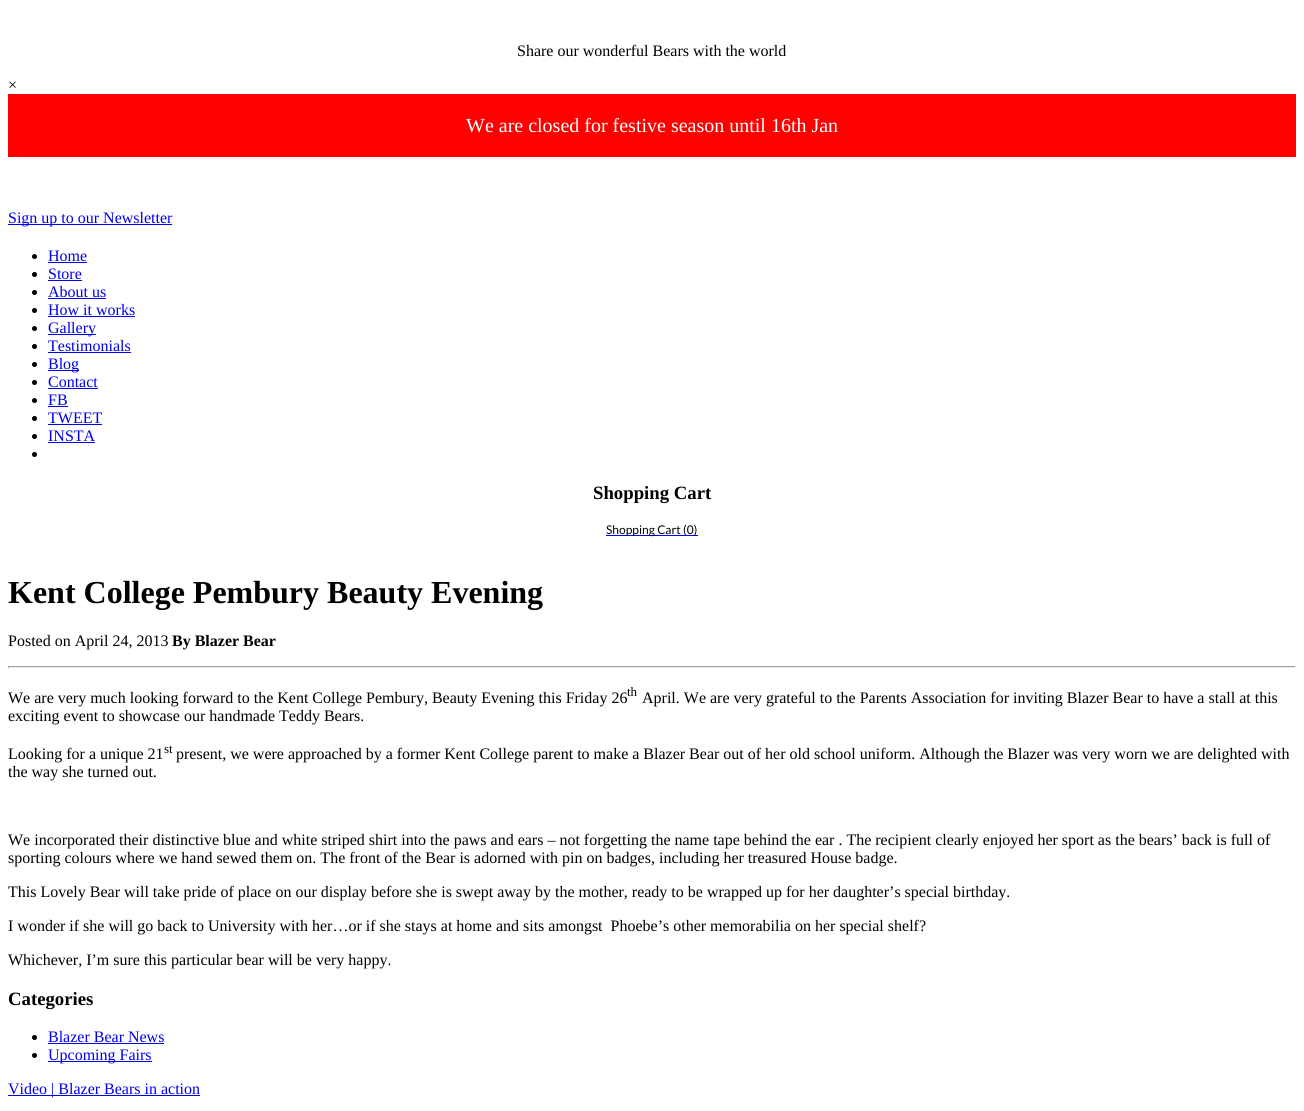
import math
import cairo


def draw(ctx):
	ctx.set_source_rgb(1, 1, 1)
	ctx.paint()
	ctx.select_font_face('Liberation Serif')
	ctx.set_font_size(16)
	ctx.set_source_rgb(0, 0, 0)
	ctx.move_to(517, 56)
	ctx.show_text('Share our wonderful Bears with the world')
	ctx.move_to(8, 90)
	ctx.show_text('×')
	ctx.set_source_rgb(1, 0, 0)
	ctx.rectangle(8, 94, 1288, 63)
	ctx.fill()
	ctx.set_font_size(20)
	ctx.set_source_rgb(1, 1, 1)
	ctx.move_to(466, 132)
	ctx.show_text('We are closed for festive season until 16th Jan')
	ctx.set_source_rgb(0, 0, 0.933)
	ctx.rectangle(8, 224, 164, 1)
	ctx.fill()
	ctx.set_font_size(16)
	ctx.move_to(8, 223)
	ctx.show_text('Sign up to our Newsletter')
	ctx.set_source_rgb(0, 0, 0)
	ctx.new_path()
	ctx.arc(34.5, 256.5, 2.5, 0, 2 * math.pi)
	ctx.fill()
	ctx.set_source_rgb(0, 0, 0.933)
	ctx.move_to(48, 261)
	ctx.show_text('Home')
	ctx.rectangle(48, 262, 39, 1)
	ctx.fill()
	ctx.set_source_rgb(0, 0, 0)
	ctx.arc(34.5, 274.5, 2.5, 0, 2 * math.pi)
	ctx.fill()
	ctx.set_source_rgb(0, 0, 0.933)
	ctx.move_to(48, 279)
	ctx.show_text('Store')
	ctx.rectangle(48, 280, 34, 1)
	ctx.fill()
	ctx.set_source_rgb(0, 0, 0)
	ctx.arc(34.5, 292.5, 2.5, 0, 2 * math.pi)
	ctx.fill()
	ctx.set_source_rgb(0, 0, 0.933)
	ctx.move_to(48, 297)
	ctx.show_text('About us')
	ctx.rectangle(48, 298, 58, 1)
	ctx.fill()
	ctx.set_source_rgb(0, 0, 0)
	ctx.arc(34.5, 310.5, 2.5, 0, 2 * math.pi)
	ctx.fill()
	ctx.set_source_rgb(0, 0, 0.933)
	ctx.move_to(48, 315)
	ctx.show_text('How it works')
	ctx.rectangle(48, 316, 87, 1)
	ctx.fill()
	ctx.set_source_rgb(0, 0, 0)
	ctx.arc(34.5, 328.5, 2.5, 0, 2 * math.pi)
	ctx.fill()
	ctx.set_source_rgb(0, 0, 0.933)
	ctx.rectangle(48, 334, 48, 1)
	ctx.fill()
	ctx.move_to(48, 333)
	ctx.show_text('Gallery')
	ctx.set_source_rgb(0, 0, 0)
	ctx.new_path()
	ctx.arc(34.5, 346.5, 2.5, 0, 2 * math.pi)
	ctx.fill()
	ctx.set_source_rgb(0, 0, 0.933)
	ctx.move_to(48, 351)
	ctx.show_text('Testimonials')
	ctx.rectangle(48, 352, 83, 1)
	ctx.fill()
	ctx.set_source_rgb(0, 0, 0)
	ctx.arc(34.5, 364.5, 2.5, 0, 2 * math.pi)
	ctx.fill()
	ctx.set_source_rgb(0, 0, 0.933)
	ctx.rectangle(48, 370, 31, 1)
	ctx.fill()
	ctx.move_to(48, 369)
	ctx.show_text('Blog')
	ctx.set_source_rgb(0, 0, 0)
	ctx.new_path()
	ctx.arc(34.5, 382.5, 2.5, 0, 2 * math.pi)
	ctx.fill()
	ctx.set_source_rgb(0, 0, 0.933)
	ctx.move_to(48, 387)
	ctx.show_text('Contact')
	ctx.rectangle(48, 388, 50, 1)
	ctx.fill()
	ctx.set_source_rgb(0, 0, 0)
	ctx.arc(34.5, 400.5, 2.5, 0, 2 * math.pi)
	ctx.fill()
	ctx.set_source_rgb(0, 0, 0.933)
	ctx.move_to(48, 405)
	ctx.show_text('FB')
	ctx.rectangle(48, 406, 20, 1)
	ctx.fill()
	ctx.set_source_rgb(0, 0, 0)
	ctx.arc(34.5, 418.5, 2.5, 0, 2 * math.pi)
	ctx.fill()
	ctx.set_source_rgb(0, 0, 0.933)
	ctx.move_to(48, 423)
	ctx.show_text('TWEET')
	ctx.rectangle(48, 424, 54, 1)
	ctx.fill()
	ctx.set_source_rgb(0, 0, 0)
	ctx.arc(34.5, 436.5, 2.5, 0, 2 * math.pi)
	ctx.fill()
	ctx.set_source_rgb(0, 0, 0.933)
	ctx.move_to(48, 441)
	ctx.show_text('INSTA')
	ctx.rectangle(48, 442, 47, 1)
	ctx.fill()
	ctx.set_source_rgb(0, 0, 0)
	ctx.arc(34.5, 454.5, 2.5, 0, 2 * math.pi)
	ctx.fill()
	ctx.select_font_face('Liberation Serif', cairo.FONT_SLANT_NORMAL, cairo.FONT_WEIGHT_BOLD)
	ctx.set_font_size(18.75)
	ctx.move_to(593, 499)
	ctx.show_text('Shopping Cart')
	ctx.set_source_rgb(0, 0, 0.933)
	ctx.rectangle(606, 535, 92, 1)
	ctx.fill()
	ctx.select_font_face('Lato')
	ctx.set_font_size(12)
	ctx.set_source_rgb(0, 0, 0)
	ctx.move_to(606, 534)
	ctx.show_text('Shopping Cart (0)')
	ctx.select_font_face('Liberation Serif', cairo.FONT_SLANT_NORMAL, cairo.FONT_WEIGHT_BOLD)
	ctx.set_font_size(32)
	ctx.move_to(8, 603)
	ctx.show_text('Kent College Pembury Beauty Evening')
	ctx.select_font_face('Liberation Serif')
	ctx.set_font_size(16)
	ctx.move_to(8, 646)
	ctx.show_text('Posted on April 24, 2013')
	ctx.select_font_face('Liberation Serif', cairo.FONT_SLANT_NORMAL, cairo.FONT_WEIGHT_BOLD)
	ctx.move_to(172, 646)
	ctx.show_text('By Blazer Bear')
	ctx.set_source_rgb(0.624, 0.624, 0.624)
	ctx.rectangle(8, 666, 1288, 1)
	ctx.fill()
	ctx.set_source_rgb(0.933, 0.933, 0.933)
	ctx.rectangle(1295, 666, 1, 2)
	ctx.rectangle(8, 667, 1288, 1)
	ctx.fill()
	ctx.set_source_rgb(0.624, 0.624, 0.624)
	ctx.rectangle(8, 666, 1, 2)
	ctx.fill()
	ctx.select_font_face('Liberation Serif')
	ctx.set_source_rgb(0, 0, 0)
	ctx.move_to(8, 703)
	ctx.show_text('We are very much looking forward to the Kent College Pembury, Beauty Evening this Friday 26')
	ctx.set_font_size(13)
	ctx.move_to(627, 696)
	ctx.show_text('th')
	ctx.set_font_size(16)
	for x, y, s in [
		(642, 703, 'April. We are very grateful to the Parents Association for inviting Blazer Bear to have a stall at this'),
		(8, 721, 'exciting event to showcase our handmade Teddy Bears.'),
		(8, 759, 'Looking for a unique 21'),
	]:
		ctx.move_to(x, y)
		ctx.show_text(s)
	ctx.set_font_size(13)
	ctx.move_to(164, 753)
	ctx.show_text('st')
	ctx.set_font_size(16)
	for x, y, s in [
		(176, 759, 'present, we were approached by a former Kent College parent to make a Blazer Bear out of her old school uniform. Although the Blazer was very worn we are delighted with'),
		(8, 777, 'the way she turned out.'),
		(8, 845, 'We incorporated their distinctive blue and white striped shirt into the paws and ears – not forgetting the name tape behind the ear . The recipient clearly enjoyed her sport as the bears’ back is full of'),
		(8, 863, 'sporting colours where we hand sewed them on. The front of the Bear is adorned with pin on badges, including her treasured House badge.'),
		(8, 897, 'This Lovely Bear will take pride of place on our display before she is swept away by the mother, ready to be wrapped up for her daughter’s special birthday.'),
		(8, 931, 'I wonder if she will go back to University with her…or if she stays at home and sits amongst  Phoebe’s other memorabilia on her special shelf?'),
		(8, 965, 'Whichever, I’m sure this particular bear will be very happy.'),
	]:
		ctx.move_to(x, y)
		ctx.show_text(s)
	ctx.select_font_face('Liberation Serif', cairo.FONT_SLANT_NORMAL, cairo.FONT_WEIGHT_BOLD)
	ctx.set_font_size(18.75)
	ctx.move_to(8, 1005)
	ctx.show_text('Categories')
	ctx.new_path()
	ctx.arc(34.5, 1037.5, 2.5, 0, 2 * math.pi)
	ctx.fill()
	ctx.select_font_face('Liberation Serif')
	ctx.set_font_size(16)
	ctx.set_source_rgb(0, 0, 0.933)
	ctx.move_to(48, 1042)
	ctx.show_text('Blazer Bear News')
	ctx.rectangle(48, 1043, 116, 1)
	ctx.fill()
	ctx.set_source_rgb(0, 0, 0)
	ctx.arc(34.5, 1055.5, 2.5, 0, 2 * math.pi)
	ctx.fill()
	ctx.set_source_rgb(0, 0, 0.933)
	ctx.rectangle(48, 1061, 104, 1)
	ctx.fill()
	ctx.move_to(48, 1060)
	ctx.show_text('Upcoming Fairs')
	ctx.rectangle(8, 1095, 192, 1)
	ctx.fill()
	ctx.move_to(8, 1094)
	ctx.show_text('Video | Blazer Bears in action')


surface = cairo.ImageSurface(cairo.FORMAT_RGB24, 1304, 1111)
ctx = cairo.Context(surface)
options = cairo.FontOptions()
options.set_hint_metrics(cairo.HINT_METRICS_OFF)
options.set_hint_style(cairo.HINT_STYLE_NONE)
ctx.set_font_options(options)
ctx.set_miter_limit(4)
draw(ctx)
surface.write_to_png('image.png')
